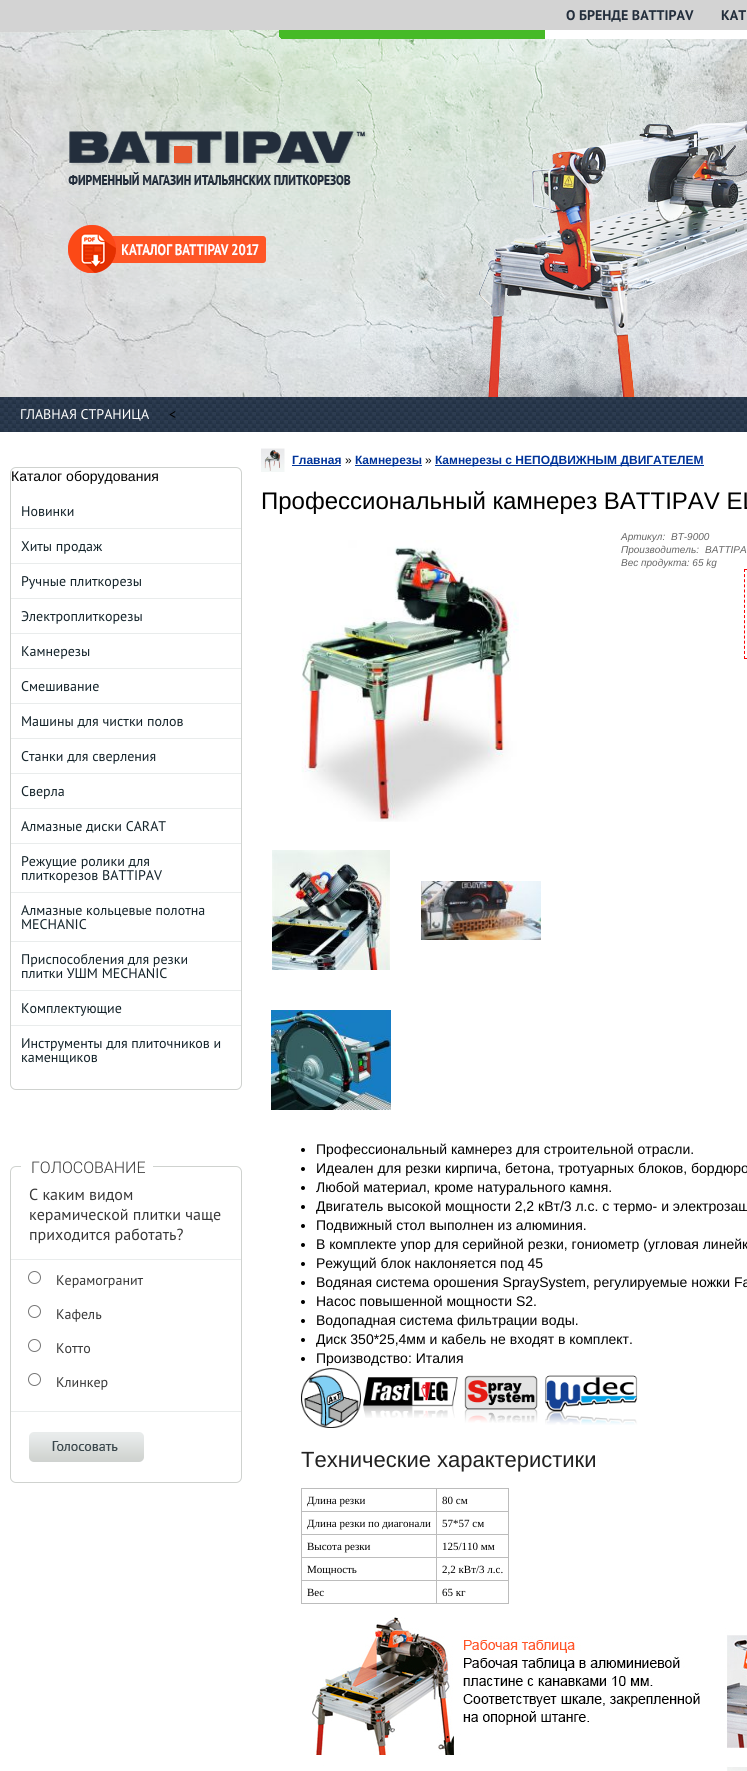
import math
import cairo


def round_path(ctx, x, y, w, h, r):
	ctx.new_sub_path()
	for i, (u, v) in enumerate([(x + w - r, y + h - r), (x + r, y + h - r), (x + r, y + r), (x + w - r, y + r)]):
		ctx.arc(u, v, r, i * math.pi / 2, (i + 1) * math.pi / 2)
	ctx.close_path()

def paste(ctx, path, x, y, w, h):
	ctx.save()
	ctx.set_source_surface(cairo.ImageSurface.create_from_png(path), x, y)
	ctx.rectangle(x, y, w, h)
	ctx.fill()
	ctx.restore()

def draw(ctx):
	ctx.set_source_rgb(1, 1, 1)
	ctx.paint()
	ctx.set_source_rgb(0.827, 0.827, 0.827)
	ctx.rectangle(0, 0, 747, 30)
	ctx.fill()
	ctx.select_font_face('PT Sans', cairo.FONT_SLANT_NORMAL, cairo.FONT_WEIGHT_BOLD)
	ctx.set_font_size(14)
	ctx.set_source_rgb(0.137, 0.18, 0.235)
	ctx.move_to(566, 20)
	ctx.show_text('О БРЕНДЕ BATTIPAV')
	ctx.move_to(721, 20)
	ctx.show_text('КАТ')
	paste(ctx, 'media/1.png', 0, 30, 747, 367)
	paste(ctx, 'media/2.png', 68, 131, 300, 54)
	paste(ctx, 'media/3.png', 478, 120, 269, 277)
	paste(ctx, 'media/4.png', 68, 225, 198, 48)
	paste(ctx, 'media/5.png', 0, 397, 747, 35)
	ctx.select_font_face('PT Sans')
	ctx.set_source_rgb(1, 1, 1)
	ctx.move_to(20, 419)
	ctx.show_text('ГЛАВНАЯ СТРАНИЦА')
	ctx.set_source_rgb(0, 0, 0)
	ctx.move_to(169, 419)
	ctx.show_text('<')
	round_path(ctx, 10.5, 467.5, 231, 622, 5.5)
	ctx.set_source_rgb(0.812, 0.824, 0.812)
	ctx.set_line_width(1)
	ctx.stroke()
	ctx.select_font_face('Liberation Sans')
	ctx.set_source_rgb(0, 0, 0)
	ctx.move_to(11, 481)
	ctx.show_text('Каталог оборудования')
	ctx.select_font_face('PT Sans')
	ctx.set_source_rgb(0.075, 0.133, 0.161)
	ctx.move_to(21, 516)
	ctx.show_text('Новинки')
	ctx.set_source_rgb(0.914, 0.925, 0.925)
	ctx.rectangle(11, 528, 230, 1)
	ctx.fill()
	ctx.set_source_rgb(0.075, 0.133, 0.161)
	ctx.move_to(21, 551)
	ctx.show_text('Хиты продаж')
	ctx.set_source_rgb(0.914, 0.925, 0.925)
	ctx.rectangle(11, 563, 230, 1)
	ctx.fill()
	ctx.set_source_rgb(0.075, 0.133, 0.161)
	ctx.move_to(21, 586)
	ctx.show_text('Ручные плиткорезы')
	ctx.set_source_rgb(0.914, 0.925, 0.925)
	ctx.rectangle(11, 598, 230, 1)
	ctx.fill()
	ctx.set_source_rgb(0.075, 0.133, 0.161)
	ctx.move_to(21, 621)
	ctx.show_text('Электроплиткорезы')
	ctx.set_source_rgb(0.914, 0.925, 0.925)
	ctx.rectangle(11, 633, 230, 1)
	ctx.fill()
	ctx.set_source_rgb(0.075, 0.133, 0.161)
	ctx.move_to(21, 656)
	ctx.show_text('Камнерезы')
	ctx.set_source_rgb(0.914, 0.925, 0.925)
	ctx.rectangle(11, 668, 230, 1)
	ctx.fill()
	ctx.set_source_rgb(0.075, 0.133, 0.161)
	ctx.move_to(21, 691)
	ctx.show_text('Смешивание')
	ctx.set_source_rgb(0.914, 0.925, 0.925)
	ctx.rectangle(11, 703, 230, 1)
	ctx.fill()
	ctx.set_source_rgb(0.075, 0.133, 0.161)
	ctx.move_to(21, 726)
	ctx.show_text('Машины для чистки полов')
	ctx.set_source_rgb(0.914, 0.925, 0.925)
	ctx.rectangle(11, 738, 230, 1)
	ctx.fill()
	ctx.set_source_rgb(0.075, 0.133, 0.161)
	ctx.move_to(21, 761)
	ctx.show_text('Станки для сверления')
	ctx.set_source_rgb(0.914, 0.925, 0.925)
	ctx.rectangle(11, 773, 230, 1)
	ctx.fill()
	ctx.set_source_rgb(0.075, 0.133, 0.161)
	ctx.move_to(21, 796)
	ctx.show_text('Сверла')
	ctx.set_source_rgb(0.914, 0.925, 0.925)
	ctx.rectangle(11, 808, 230, 1)
	ctx.fill()
	ctx.set_source_rgb(0.075, 0.133, 0.161)
	ctx.move_to(21, 831)
	ctx.show_text('Алмазные диски CARAT')
	ctx.set_source_rgb(0.914, 0.925, 0.925)
	ctx.rectangle(11, 843, 230, 1)
	ctx.fill()
	ctx.set_source_rgb(0.075, 0.133, 0.161)
	ctx.move_to(21, 866)
	ctx.show_text('Режущие ролики для')
	ctx.move_to(21, 880)
	ctx.show_text('плиткорезов BATTIPAV')
	ctx.set_source_rgb(0.914, 0.925, 0.925)
	ctx.rectangle(11, 892, 230, 1)
	ctx.fill()
	ctx.set_source_rgb(0.075, 0.133, 0.161)
	ctx.move_to(21, 915)
	ctx.show_text('Алмазные кольцевые полотна')
	ctx.move_to(21, 929)
	ctx.show_text('MECHANIC')
	ctx.set_source_rgb(0.914, 0.925, 0.925)
	ctx.rectangle(11, 941, 230, 1)
	ctx.fill()
	ctx.set_source_rgb(0.075, 0.133, 0.161)
	ctx.move_to(21, 964)
	ctx.show_text('Приспособления для резки')
	ctx.move_to(21, 978)
	ctx.show_text('плитки УШМ MECHANIC')
	ctx.set_source_rgb(0.914, 0.925, 0.925)
	ctx.rectangle(11, 990, 230, 1)
	ctx.fill()
	ctx.set_source_rgb(0.075, 0.133, 0.161)
	ctx.move_to(21, 1013)
	ctx.show_text('Комплектующие')
	ctx.set_source_rgb(0.914, 0.925, 0.925)
	ctx.rectangle(11, 1025, 230, 1)
	ctx.fill()
	ctx.set_source_rgb(0.075, 0.133, 0.161)
	ctx.move_to(21, 1048)
	ctx.show_text('Инструменты для плиточников и')
	ctx.move_to(21, 1062)
	ctx.show_text('каменщиков')
	round_path(ctx, 10.5, 1166.5, 231, 316, 5.5)
	ctx.set_source_rgb(0.812, 0.824, 0.812)
	ctx.stroke()
	ctx.set_source_rgb(1, 1, 1)
	ctx.rectangle(21, 1166, 132, 1)
	ctx.fill()
	ctx.select_font_face('Roboto Light')
	ctx.set_font_size(16)
	ctx.set_source_rgb(0.22, 0.22, 0.22)
	ctx.move_to(31, 1173)
	ctx.show_text('ГОЛОСОВАНИЕ')
	ctx.set_source_rgb(0.914, 0.925, 0.925)
	ctx.rectangle(11, 1259, 230, 1)
	ctx.fill()
	ctx.select_font_face('PT Sans')
	ctx.set_source_rgb(0.22, 0.22, 0.22)
	for x, y, s in [
		(29, 1200, 'С каким видом'),
		(29, 1220, 'керамической плитки чаще'),
		(29, 1240, 'приходится работать?'),
	]:
		ctx.move_to(x, y)
		ctx.show_text(s)
	ctx.new_path()
	ctx.arc(34.5, 1277.5, 6, 0, 2 * math.pi)
	ctx.set_source_rgb(0.463, 0.463, 0.463)
	ctx.stroke()
	ctx.set_font_size(14)
	ctx.set_source_rgb(0.22, 0.22, 0.22)
	ctx.move_to(56, 1285)
	ctx.show_text('Керамогранит')
	ctx.new_path()
	ctx.arc(34.5, 1311.5, 6, 0, 2 * math.pi)
	ctx.set_source_rgb(0.463, 0.463, 0.463)
	ctx.stroke()
	ctx.set_source_rgb(0.22, 0.22, 0.22)
	ctx.move_to(56, 1319)
	ctx.show_text('Кафель')
	ctx.new_path()
	ctx.arc(34.5, 1345.5, 6, 0, 2 * math.pi)
	ctx.set_source_rgb(0.463, 0.463, 0.463)
	ctx.stroke()
	ctx.set_source_rgb(0.22, 0.22, 0.22)
	ctx.move_to(56, 1353)
	ctx.show_text('Котто')
	ctx.new_path()
	ctx.arc(34.5, 1379.5, 6, 0, 2 * math.pi)
	ctx.set_source_rgb(0.463, 0.463, 0.463)
	ctx.stroke()
	ctx.set_source_rgb(0.22, 0.22, 0.22)
	ctx.move_to(56, 1387)
	ctx.show_text('Клинкер')
	ctx.set_source_rgb(0.914, 0.925, 0.925)
	ctx.rectangle(11, 1411, 230, 1)
	ctx.fill()
	paste(ctx, 'media/6.png', 29, 1432, 115, 30)
	paste(ctx, 'media/7.png', 261, 448, 24, 24)
	ctx.select_font_face('Liberation Sans', cairo.FONT_SLANT_NORMAL, cairo.FONT_WEIGHT_BOLD)
	ctx.set_font_size(12)
	ctx.set_source_rgb(0, 0.2, 0.6)
	ctx.move_to(292, 464)
	ctx.show_text('Главная')
	ctx.rectangle(292, 465, 49, 1)
	ctx.fill()
	ctx.select_font_face('Liberation Sans')
	ctx.set_source_rgb(0, 0, 0)
	ctx.move_to(345, 464)
	ctx.show_text('»')
	ctx.set_source_rgb(0, 0.2, 0.6)
	ctx.rectangle(355, 465, 67, 1)
	ctx.fill()
	ctx.select_font_face('Liberation Sans', cairo.FONT_SLANT_NORMAL, cairo.FONT_WEIGHT_BOLD)
	ctx.move_to(355, 464)
	ctx.show_text('Камнерезы')
	ctx.select_font_face('Liberation Sans')
	ctx.set_source_rgb(0, 0, 0)
	ctx.move_to(425, 464)
	ctx.show_text('»')
	ctx.set_source_rgb(0, 0.2, 0.6)
	ctx.rectangle(435, 465, 269, 1)
	ctx.fill()
	ctx.select_font_face('Liberation Sans', cairo.FONT_SLANT_NORMAL, cairo.FONT_WEIGHT_BOLD)
	ctx.move_to(435, 464)
	ctx.show_text('Камнерезы с НЕПОДВИЖНЫМ ДВИГАТЕЛЕМ')
	ctx.select_font_face('Liberation Sans')
	ctx.set_font_size(24)
	ctx.set_source_rgb(0, 0, 0)
	ctx.move_to(261, 509)
	ctx.show_text('Профессиональный камнерез BATTIPAV EL')
	paste(ctx, 'media/8.png', 301, 540, 218, 282)
	paste(ctx, 'media/9.png', 272, 850, 118, 120)
	paste(ctx, 'media/10.png', 421, 881, 120, 59)
	paste(ctx, 'media/11.png', 271, 1010, 120, 100)
	ctx.select_font_face('Liberation Sans', cairo.FONT_SLANT_ITALIC)
	ctx.set_font_size(10)
	ctx.set_source_rgb(0.4, 0.4, 0.4)
	for x, y, s in [
		(621, 540, 'Артикул:'),
		(671, 540, 'BT-9000'),
		(621, 553, 'Производитель:'),
		(705, 553, 'BATTIPA'),
		(621, 566, 'Вес продукта: 65 kg'),
	]:
		ctx.move_to(x, y)
		ctx.show_text(s)
	ctx.new_path()
	ctx.move_to(744, 569.5)
	ctx.line_to(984, 569.5)
	ctx.set_source_rgb(1, 0, 0)
	ctx.set_dash([3, 2.04])
	ctx.stroke()
	ctx.new_path()
	ctx.move_to(744, 658.5)
	ctx.line_to(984, 658.5)
	ctx.stroke()
	ctx.new_path()
	ctx.move_to(744.5, 569)
	ctx.line_to(744.5, 659)
	ctx.set_dash([3, 2.12])
	ctx.stroke()
	ctx.set_source_rgb(0.996, 1, 0.98)
	ctx.rectangle(746, 583, 1, 1)
	ctx.fill()
	ctx.set_source_rgb(0, 0, 0)
	ctx.arc(303, 1150, 2, 0, 2 * math.pi)
	ctx.fill()
	ctx.select_font_face('Liberation Sans')
	ctx.set_font_size(14)
	ctx.move_to(316, 1154)
	ctx.show_text('Профессиональный камнерез для строительной отрасли.')
	ctx.new_path()
	ctx.arc(303, 1169, 2, 0, 2 * math.pi)
	ctx.fill()
	ctx.move_to(316, 1173)
	ctx.show_text('Идеален для резки кирпича, бетона, тротуарных блоков, бордюро')
	ctx.new_path()
	ctx.arc(303, 1188, 2, 0, 2 * math.pi)
	ctx.fill()
	ctx.move_to(316, 1192)
	ctx.show_text('Любой материал, кроме натурального камня.')
	ctx.new_path()
	ctx.arc(303, 1207, 2, 0, 2 * math.pi)
	ctx.fill()
	ctx.move_to(316, 1211)
	ctx.show_text('Двигатель высокой мощности 2,2 кВт/3 л.с. с термо- и электрозащ')
	ctx.new_path()
	ctx.arc(303, 1226, 2, 0, 2 * math.pi)
	ctx.fill()
	ctx.move_to(316, 1230)
	ctx.show_text('Подвижный стол выполнен из алюминия.')
	ctx.new_path()
	ctx.arc(303, 1245, 2, 0, 2 * math.pi)
	ctx.fill()
	ctx.move_to(316, 1249)
	ctx.show_text('В комплекте упор для серийной резки, гониометр (угловая линейк')
	ctx.new_path()
	ctx.arc(303, 1264, 2, 0, 2 * math.pi)
	ctx.fill()
	ctx.move_to(316, 1268)
	ctx.show_text('Режущий блок наклоняется под 45')
	ctx.new_path()
	ctx.arc(303, 1283, 2, 0, 2 * math.pi)
	ctx.fill()
	ctx.move_to(316, 1287)
	ctx.show_text('Водяная система орошения SpraySystem, регулируемые ножки Fa')
	ctx.new_path()
	ctx.arc(303, 1302, 2, 0, 2 * math.pi)
	ctx.fill()
	ctx.move_to(316, 1306)
	ctx.show_text('Насос повышенной мощности S2.')
	ctx.new_path()
	ctx.arc(303, 1321, 2, 0, 2 * math.pi)
	ctx.fill()
	ctx.move_to(316, 1325)
	ctx.show_text('Водопадная система фильтрации воды.')
	ctx.new_path()
	ctx.arc(303, 1340, 2, 0, 2 * math.pi)
	ctx.fill()
	ctx.move_to(316, 1344)
	ctx.show_text('Диск 350*25,4мм и кабель не входят в комплект.')
	ctx.new_path()
	ctx.arc(303, 1359, 2, 0, 2 * math.pi)
	ctx.fill()
	ctx.move_to(316, 1363)
	ctx.show_text('Производство: Италия')
	paste(ctx, 'media/12.png', 301, 1368, 60, 60)
	paste(ctx, 'media/13.png', 362, 1377, 96, 41)
	paste(ctx, 'media/14.png', 464, 1375, 74, 48)
	paste(ctx, 'media/15.png', 545, 1375, 93, 50)
	ctx.set_font_size(22)
	ctx.set_source_rgb(0.133, 0.133, 0.133)
	ctx.move_to(301, 1467)
	ctx.show_text('Технические характеристики')
	ctx.set_source_rgb(0.737, 0.737, 0.737)
	ctx.rectangle(301, 1488, 208, 1)
	ctx.rectangle(508, 1488, 1, 116)
	ctx.rectangle(301, 1603, 208, 1)
	ctx.rectangle(301, 1488, 1, 116)
	ctx.fill()
	ctx.select_font_face('Liberation Serif')
	ctx.set_font_size(11)
	ctx.set_source_rgb(0, 0, 0)
	ctx.move_to(307, 1504)
	ctx.show_text('Длина резки')
	ctx.set_source_rgb(0.737, 0.737, 0.737)
	ctx.rectangle(436, 1511, 73, 1)
	ctx.rectangle(436, 1534, 73, 1)
	ctx.rectangle(436, 1557, 73, 1)
	ctx.rectangle(436, 1580, 73, 1)
	ctx.rectangle(436, 1580, 1, 24)
	ctx.rectangle(301, 1580, 136, 1)
	ctx.rectangle(436, 1557, 1, 24)
	ctx.rectangle(301, 1557, 136, 1)
	ctx.rectangle(436, 1534, 1, 24)
	ctx.rectangle(301, 1534, 136, 1)
	ctx.rectangle(436, 1511, 1, 24)
	ctx.rectangle(301, 1511, 136, 1)
	ctx.rectangle(436, 1488, 1, 24)
	ctx.fill()
	ctx.set_source_rgb(0, 0, 0)
	for x, y, s in [
		(442, 1504, '80 см'),
		(307, 1527, 'Длина резки по диагонали'),
		(442, 1527, '57*57 см'),
		(307, 1550, 'Высота резки'),
		(442, 1550, '125/110 мм'),
		(307, 1573, 'Мощность'),
		(442, 1573, '2,2 кВт/3 л.с.'),
		(307, 1596, 'Вес'),
		(442, 1596, '65 кг'),
	]:
		ctx.move_to(x, y)
		ctx.show_text(s)
	paste(ctx, 'media/16.png', 310, 1617, 437, 154)


surface = cairo.ImageSurface(cairo.FORMAT_RGB24, 747, 1771)
ctx = cairo.Context(surface)
options = cairo.FontOptions()
options.set_hint_metrics(cairo.HINT_METRICS_OFF)
options.set_hint_style(cairo.HINT_STYLE_NONE)
ctx.set_font_options(options)
ctx.set_miter_limit(4)
draw(ctx)
surface.write_to_png('image.png')
